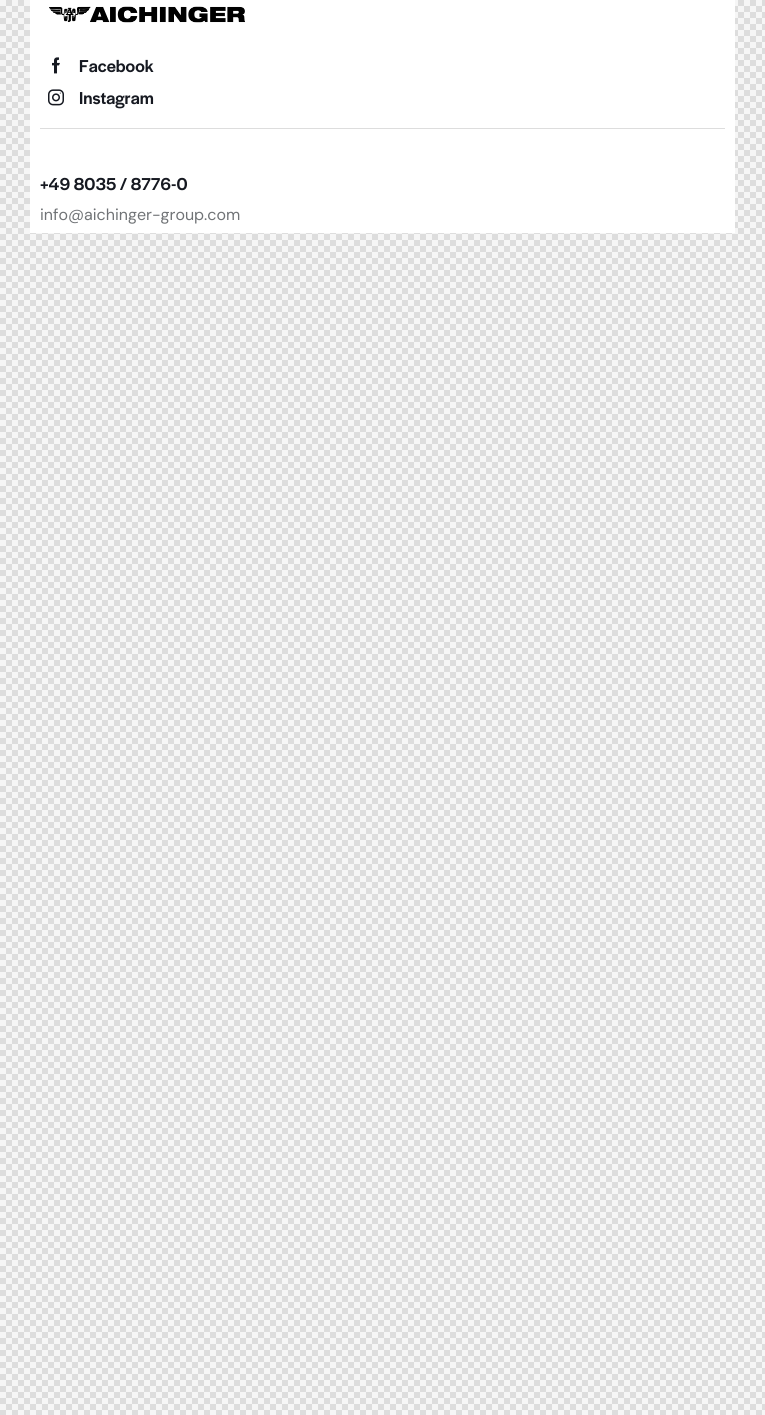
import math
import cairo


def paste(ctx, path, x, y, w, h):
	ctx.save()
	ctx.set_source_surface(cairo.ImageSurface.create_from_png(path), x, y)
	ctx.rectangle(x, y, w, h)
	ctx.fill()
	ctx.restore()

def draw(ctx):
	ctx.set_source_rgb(1, 1, 1)
	ctx.paint()
	paste(ctx, 'media/1.png', 0, 0, 765, 1415)
	ctx.set_source_rgb(1, 1, 1)
	ctx.rectangle(30, 0, 705, 233)
	ctx.fill()
	paste(ctx, 'media/2.png', 49, 6, 196, 17)
	paste(ctx, 'media/3.png', 52, 57, 8, 17)
	ctx.select_font_face('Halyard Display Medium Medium')
	ctx.set_font_size(18)
	ctx.set_source_rgb(0.086, 0.098, 0.129)
	ctx.move_to(79, 72)
	ctx.show_text('Facebook')
	paste(ctx, 'media/4.png', 48, 89, 16, 17)
	ctx.move_to(79, 104)
	ctx.show_text('Instagram')
	ctx.set_source_rgb(0.867, 0.867, 0.867)
	ctx.rectangle(40, 128, 685, 1)
	ctx.fill()
	ctx.set_source_rgb(0.086, 0.098, 0.129)
	ctx.move_to(40, 190)
	ctx.show_text('+49 8035 / 8776-0')
	ctx.select_font_face('DM Sans')
	ctx.set_font_size(16)
	ctx.set_source_rgb(0.439, 0.451, 0.463)
	ctx.move_to(40, 220)
	ctx.show_text('info@aichinger-group.com')


surface = cairo.ImageSurface(cairo.FORMAT_RGB24, 765, 1415)
ctx = cairo.Context(surface)
options = cairo.FontOptions()
options.set_hint_metrics(cairo.HINT_METRICS_OFF)
options.set_hint_style(cairo.HINT_STYLE_NONE)
ctx.set_font_options(options)
ctx.set_miter_limit(4)
draw(ctx)
surface.write_to_png('image.png')
